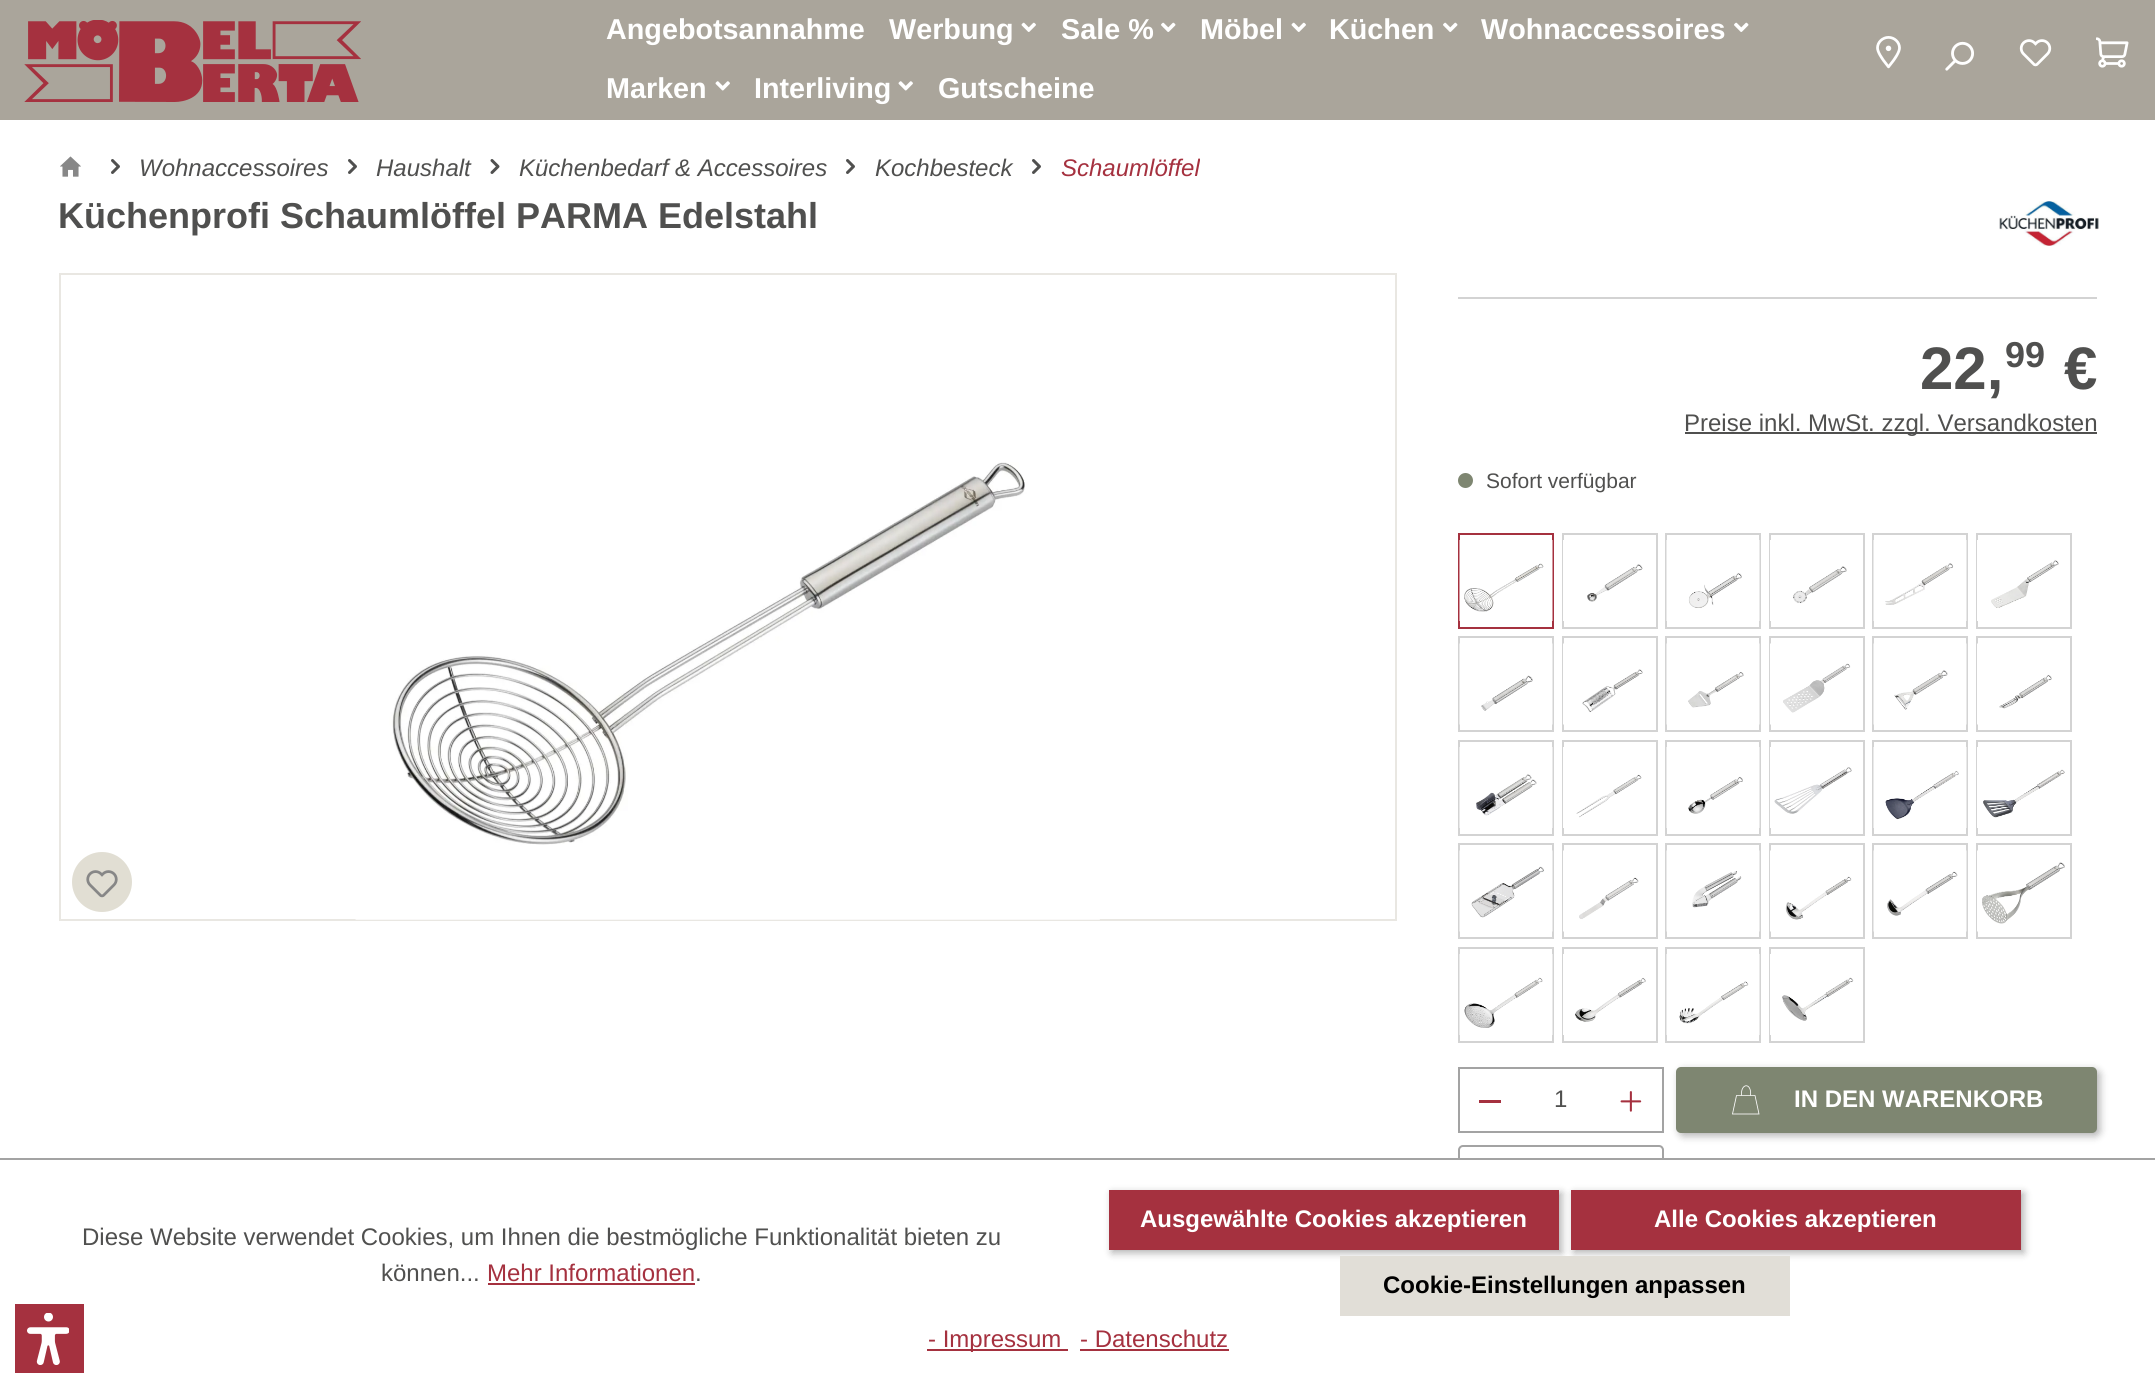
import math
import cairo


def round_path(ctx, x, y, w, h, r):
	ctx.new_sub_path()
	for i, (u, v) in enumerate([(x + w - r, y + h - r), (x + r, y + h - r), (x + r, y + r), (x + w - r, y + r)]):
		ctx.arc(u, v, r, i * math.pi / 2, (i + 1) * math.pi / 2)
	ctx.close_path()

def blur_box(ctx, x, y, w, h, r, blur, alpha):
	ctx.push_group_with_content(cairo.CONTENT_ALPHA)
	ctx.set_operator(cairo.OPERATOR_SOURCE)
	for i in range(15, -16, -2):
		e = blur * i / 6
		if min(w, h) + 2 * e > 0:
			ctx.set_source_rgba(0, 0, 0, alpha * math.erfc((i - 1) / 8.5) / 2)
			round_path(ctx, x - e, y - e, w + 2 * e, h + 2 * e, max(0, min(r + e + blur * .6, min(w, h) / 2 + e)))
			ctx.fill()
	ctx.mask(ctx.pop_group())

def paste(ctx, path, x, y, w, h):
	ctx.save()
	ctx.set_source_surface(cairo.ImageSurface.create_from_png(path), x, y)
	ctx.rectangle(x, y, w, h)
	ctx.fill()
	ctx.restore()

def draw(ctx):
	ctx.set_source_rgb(1, 1, 1)
	ctx.paint()
	ctx.set_source_rgb(0.647, 0.192, 0.247)
	ctx.rectangle(15, 1304, 69, 69)
	ctx.fill()
	paste(ctx, 'media/1.png', 27, 1313, 42, 52)
	ctx.set_source_rgb(0.667, 0.647, 0.608)
	ctx.rectangle(0, 0, 2155, 120)
	ctx.fill()
	paste(ctx, 'media/2.png', 24, 20, 337, 82)
	ctx.select_font_face('Liberation Sans', cairo.FONT_SLANT_NORMAL, cairo.FONT_WEIGHT_BOLD)
	ctx.set_font_size(28.75)
	ctx.set_source_rgb(1, 1, 1)
	ctx.move_to(606, 39)
	ctx.show_text('Angebotsannahme')
	ctx.move_to(889, 39)
	ctx.show_text('Werbung')
	paste(ctx, 'media/3.png', 1021, 22, 15, 10)
	ctx.move_to(1061, 39)
	ctx.show_text('Sale %')
	paste(ctx, 'media/4.png', 1161, 22, 15, 10)
	ctx.move_to(1200, 39)
	ctx.show_text('Möbel')
	paste(ctx, 'media/3.png', 1291, 22, 15, 10)
	ctx.move_to(1329, 39)
	ctx.show_text('Küchen')
	paste(ctx, 'media/4.png', 1443, 22, 15, 10)
	ctx.move_to(1481, 39)
	ctx.show_text('Wohnaccessoires')
	paste(ctx, 'media/4.png', 1734, 22, 15, 10)
	ctx.move_to(606, 98)
	ctx.show_text('Marken')
	paste(ctx, 'media/5.png', 715, 81, 15, 10)
	ctx.move_to(754, 98)
	ctx.show_text('Interliving')
	paste(ctx, 'media/5.png', 898, 81, 15, 10)
	ctx.move_to(938, 98)
	ctx.show_text('Gutscheine')
	paste(ctx, 'media/6.png', 1876, 36, 25, 33)
	paste(ctx, 'media/7.png', 1945, 41, 29, 30)
	paste(ctx, 'media/8.png', 2019, 39, 33, 28)
	paste(ctx, 'media/9.png', 2096, 37, 33, 31)
	paste(ctx, 'media/10.png', 60, 156, 21, 21)
	paste(ctx, 'media/11.png', 111, 159, 9, 15)
	ctx.select_font_face('Liberation Sans', cairo.FONT_SLANT_ITALIC)
	ctx.set_font_size(24)
	ctx.set_source_rgb(0.314, 0.314, 0.31)
	ctx.move_to(139, 176)
	ctx.show_text('Wohnaccessoires')
	paste(ctx, 'media/11.png', 348, 159, 9, 15)
	ctx.move_to(376, 176)
	ctx.show_text('Haushalt')
	paste(ctx, 'media/12.png', 490, 159, 10, 15)
	ctx.move_to(519, 176)
	ctx.show_text('Küchenbedarf & Accessoires')
	paste(ctx, 'media/11.png', 846, 159, 9, 15)
	ctx.move_to(875, 176)
	ctx.show_text('Kochbesteck')
	paste(ctx, 'media/11.png', 1032, 159, 9, 15)
	ctx.set_source_rgb(0.647, 0.192, 0.247)
	ctx.move_to(1061, 176)
	ctx.show_text('Schaumlöffel')
	ctx.select_font_face('Liberation Sans', cairo.FONT_SLANT_NORMAL, cairo.FONT_WEIGHT_BOLD)
	ctx.set_font_size(36)
	ctx.set_source_rgb(0.314, 0.314, 0.31)
	ctx.move_to(58, 228)
	ctx.show_text('Küchenprofi Schaumlöffel PARMA Edelstahl')
	paste(ctx, 'media/13.png', 1999, 201, 100, 45)
	ctx.rectangle(60, 274, 1336, 646)
	ctx.set_source_rgb(0.914, 0.906, 0.886)
	ctx.stroke()
	ctx.set_source_rgb(0.882, 0.871, 0.827)
	ctx.arc(102, 882, 30, 0, 2 * math.pi)
	ctx.fill()
	paste(ctx, 'media/14.png', 86, 870, 32, 28)
	paste(ctx, 'media/15.png', 355, 462, 745, 458)
	ctx.set_source_rgb(0.827, 0.827, 0.827)
	ctx.rectangle(1458, 297, 639, 2)
	ctx.fill()
	ctx.set_font_size(60)
	ctx.set_source_rgb(0.314, 0.314, 0.31)
	ctx.move_to(1920, 389)
	ctx.show_text('22,')
	ctx.set_font_size(36)
	ctx.move_to(2005, 367)
	ctx.show_text('99')
	ctx.set_font_size(60)
	ctx.move_to(2064, 389)
	ctx.show_text('€')
	ctx.rectangle(1685, 432, 412, 2)
	ctx.fill()
	ctx.select_font_face('Liberation Sans')
	ctx.set_font_size(24)
	ctx.move_to(1684, 431)
	ctx.show_text('Preise inkl. MwSt. zzgl. Versandkosten')
	ctx.set_source_rgb(0.494, 0.525, 0.443)
	ctx.new_path()
	ctx.arc(1465.5, 480.5, 7.5, 0, 2 * math.pi)
	ctx.fill()
	ctx.set_font_size(21)
	ctx.set_source_rgb(0.314, 0.314, 0.31)
	ctx.move_to(1486, 488)
	ctx.show_text('Sofort verfügbar')
	ctx.rectangle(1459, 534, 94, 94)
	ctx.set_source_rgb(0.647, 0.192, 0.247)
	ctx.stroke()
	paste(ctx, 'media/16.png', 1459, 540, 94, 81)
	ctx.rectangle(1563, 534, 94, 94)
	ctx.set_source_rgb(0.827, 0.827, 0.827)
	ctx.stroke()
	paste(ctx, 'media/17.png', 1563, 540, 80, 81)
	ctx.rectangle(1666, 534, 94, 94)
	ctx.stroke()
	paste(ctx, 'media/18.png', 1666, 540, 94, 81)
	ctx.rectangle(1770, 534, 94, 94)
	ctx.stroke()
	paste(ctx, 'media/19.png', 1770, 540, 77, 81)
	ctx.rectangle(1873, 534, 94, 94)
	ctx.stroke()
	paste(ctx, 'media/20.png', 1873, 540, 94, 81)
	ctx.rectangle(1977, 534, 94, 94)
	ctx.stroke()
	paste(ctx, 'media/21.png', 1977, 540, 82, 81)
	ctx.rectangle(1459, 637, 94, 94)
	ctx.stroke()
	paste(ctx, 'media/22.png', 1459, 643, 94, 82)
	ctx.rectangle(1563, 637, 94, 94)
	ctx.stroke()
	paste(ctx, 'media/23.png', 1563, 643, 80, 82)
	ctx.rectangle(1666, 637, 94, 94)
	ctx.stroke()
	paste(ctx, 'media/24.png', 1666, 643, 94, 82)
	ctx.rectangle(1770, 637, 94, 94)
	ctx.stroke()
	paste(ctx, 'media/25.png', 1770, 643, 81, 82)
	ctx.rectangle(1873, 637, 94, 94)
	ctx.stroke()
	paste(ctx, 'media/26.png', 1873, 643, 94, 82)
	ctx.rectangle(1977, 637, 94, 94)
	ctx.stroke()
	paste(ctx, 'media/27.png', 1977, 643, 75, 82)
	ctx.rectangle(1459, 741, 94, 94)
	ctx.stroke()
	paste(ctx, 'media/28.png', 1459, 747, 94, 81)
	ctx.rectangle(1563, 741, 94, 94)
	ctx.stroke()
	paste(ctx, 'media/29.png', 1563, 747, 79, 81)
	ctx.rectangle(1666, 741, 94, 94)
	ctx.stroke()
	paste(ctx, 'media/30.png', 1666, 747, 94, 81)
	ctx.rectangle(1770, 741, 94, 94)
	ctx.stroke()
	paste(ctx, 'media/31.png', 1770, 747, 82, 81)
	ctx.rectangle(1873, 741, 94, 94)
	ctx.stroke()
	paste(ctx, 'media/32.png', 1873, 747, 94, 81)
	ctx.rectangle(1977, 741, 94, 94)
	ctx.stroke()
	paste(ctx, 'media/33.png', 1977, 747, 88, 81)
	ctx.rectangle(1459, 844, 94, 94)
	ctx.stroke()
	paste(ctx, 'media/34.png', 1459, 850, 94, 82)
	ctx.rectangle(1563, 844, 94, 94)
	ctx.stroke()
	paste(ctx, 'media/35.png', 1563, 850, 76, 82)
	ctx.rectangle(1666, 844, 94, 94)
	ctx.stroke()
	paste(ctx, 'media/36.png', 1666, 850, 94, 82)
	ctx.rectangle(1770, 844, 94, 94)
	ctx.stroke()
	paste(ctx, 'media/37.png', 1770, 850, 82, 82)
	ctx.rectangle(1873, 844, 94, 94)
	ctx.stroke()
	paste(ctx, 'media/38.png', 1873, 850, 94, 82)
	ctx.rectangle(1977, 844, 94, 94)
	ctx.stroke()
	paste(ctx, 'media/39.png', 1977, 850, 88, 82)
	ctx.rectangle(1459, 948, 94, 94)
	ctx.stroke()
	paste(ctx, 'media/40.png', 1459, 954, 94, 81)
	ctx.rectangle(1563, 948, 94, 94)
	ctx.stroke()
	paste(ctx, 'media/41.png', 1563, 954, 83, 81)
	ctx.rectangle(1666, 948, 94, 94)
	ctx.stroke()
	paste(ctx, 'media/42.png', 1666, 954, 94, 81)
	ctx.rectangle(1770, 948, 94, 94)
	ctx.stroke()
	paste(ctx, 'media/43.png', 1770, 954, 84, 81)
	ctx.set_source_rgb(0.639, 0.639, 0.639)
	ctx.rectangle(1458, 1067, 206, 2)
	ctx.rectangle(1458, 1131, 144, 2)
	ctx.rectangle(1458, 1067, 2, 66)
	ctx.fill()
	ctx.set_source_rgb(0.647, 0.192, 0.247)
	ctx.rectangle(1479, 1100, 22, 3)
	ctx.fill()
	ctx.set_font_size(24)
	ctx.set_source_rgb(0.314, 0.314, 0.31)
	ctx.move_to(1554, 1107)
	ctx.show_text('1')
	ctx.set_source_rgb(0.639, 0.639, 0.639)
	ctx.rectangle(1662, 1067, 2, 66)
	ctx.fill()
	ctx.rectangle(1601, 1131, 63, 2)
	ctx.fill()
	paste(ctx, 'media/44.png', 1620, 1091, 22, 21)
	ctx.set_source_rgb(0, 0, 0)
	blur_box(ctx, 1679, 1070, 421, 66, 5, 4, 0.3)
	ctx.set_source_rgb(0.494, 0.525, 0.443)
	round_path(ctx, 1676, 1067, 421, 66, 5)
	ctx.fill()
	ctx.new_path()
	ctx.move_to(1736.5, 1095.5)
	ctx.line_to(1732.5, 1114)
	ctx.line_to(1759, 1114)
	ctx.line_to(1755, 1095.5)
	ctx.close_path()
	ctx.move_to(1741.5, 1095.5)
	ctx.curve_to(1740.5, 1082.5, 1752, 1082.5, 1750.5, 1095.5)
	ctx.set_source_rgb(1, 1, 1)
	ctx.set_line_width(0.8)
	ctx.stroke()
	ctx.select_font_face('Liberation Sans', cairo.FONT_SLANT_NORMAL, cairo.FONT_WEIGHT_BOLD)
	ctx.move_to(1794, 1107)
	ctx.show_text('IN DEN WARENKORB')
	round_path(ctx, 1459, 1146, 204, 64, 4)
	ctx.set_source_rgb(0.639, 0.639, 0.639)
	ctx.set_line_width(2)
	ctx.stroke()
	ctx.set_source_rgb(1, 1, 1)
	ctx.rectangle(1458, 1160, 206, 51)
	ctx.fill()
	ctx.set_source_rgb(0.639, 0.639, 0.639)
	ctx.rectangle(0, 1158, 2155, 2)
	ctx.fill()
	ctx.select_font_face('Liberation Sans')
	ctx.set_source_rgb(0.314, 0.314, 0.31)
	ctx.move_to(82, 1245)
	ctx.show_text('Diese Website verwendet Cookies, um Ihnen die bestmögliche Funktionalität bieten zu')
	ctx.move_to(381, 1281)
	ctx.show_text('können...')
	ctx.set_source_rgb(0.647, 0.192, 0.247)
	ctx.move_to(487, 1281)
	ctx.show_text('Mehr Informationen')
	ctx.rectangle(488, 1283, 207, 2)
	ctx.fill()
	ctx.set_source_rgb(0.314, 0.314, 0.31)
	ctx.move_to(695, 1281)
	ctx.show_text('.')
	ctx.set_source_rgb(0, 0, 0)
	blur_box(ctx, 1112, 1193, 450, 60, 0, 4, 0.3)
	ctx.set_source_rgb(0.647, 0.192, 0.247)
	ctx.rectangle(1109, 1190, 450, 60)
	ctx.fill()
	ctx.select_font_face('Liberation Sans', cairo.FONT_SLANT_NORMAL, cairo.FONT_WEIGHT_BOLD)
	ctx.set_source_rgb(1, 1, 1)
	ctx.move_to(1140, 1227)
	ctx.show_text('Ausgewählte Cookies akzeptieren')
	ctx.set_source_rgb(0, 0, 0)
	blur_box(ctx, 1574, 1193, 450, 60, 0, 4, 0.3)
	ctx.set_source_rgb(0.647, 0.192, 0.247)
	ctx.rectangle(1571, 1190, 450, 60)
	ctx.fill()
	ctx.set_source_rgb(1, 1, 1)
	ctx.move_to(1654, 1227)
	ctx.show_text('Alle Cookies akzeptieren')
	ctx.set_source_rgb(0.882, 0.871, 0.843)
	ctx.rectangle(1340, 1256, 450, 60)
	ctx.fill()
	ctx.set_source_rgb(0, 0, 0)
	ctx.move_to(1383, 1293)
	ctx.show_text('Cookie-Einstellungen anpassen')
	ctx.set_source_rgb(0.647, 0.192, 0.247)
	ctx.rectangle(927, 1349, 141, 2)
	ctx.fill()
	ctx.select_font_face('Liberation Sans')
	ctx.move_to(928, 1347)
	ctx.show_text('- Impressum')
	ctx.move_to(1080, 1347)
	ctx.show_text('- Datenschutz')
	ctx.rectangle(1080, 1349, 149, 2)
	ctx.fill()


surface = cairo.ImageSurface(cairo.FORMAT_RGB24, 2155, 1387)
ctx = cairo.Context(surface)
options = cairo.FontOptions()
options.set_hint_metrics(cairo.HINT_METRICS_OFF)
options.set_hint_style(cairo.HINT_STYLE_NONE)
ctx.set_font_options(options)
ctx.set_miter_limit(4)
draw(ctx)
surface.write_to_png('image.png')
